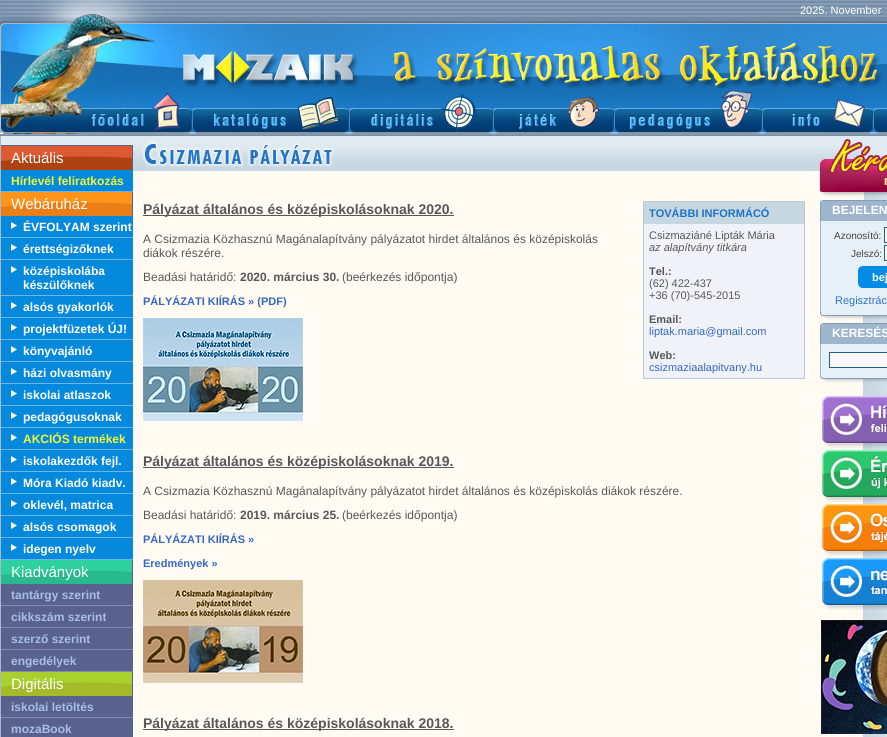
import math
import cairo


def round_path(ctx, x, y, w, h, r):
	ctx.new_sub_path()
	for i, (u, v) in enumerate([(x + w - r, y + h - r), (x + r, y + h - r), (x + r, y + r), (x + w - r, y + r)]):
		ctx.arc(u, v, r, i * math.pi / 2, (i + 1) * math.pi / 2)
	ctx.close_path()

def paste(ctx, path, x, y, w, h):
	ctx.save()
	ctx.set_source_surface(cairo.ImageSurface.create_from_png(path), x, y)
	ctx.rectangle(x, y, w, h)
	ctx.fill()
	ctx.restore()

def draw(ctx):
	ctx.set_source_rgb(1, 1, 1)
	ctx.paint()
	paste(ctx, 'media/1.png', 0, 134, 887, 2)
	paste(ctx, 'media/2.png', 0, 0, 887, 134)
	ctx.select_font_face('Liberation Sans')
	ctx.set_font_size(11)
	ctx.set_source_rgb(1, 1, 1)
	ctx.move_to(800, 14)
	ctx.show_text('2025. November')
	paste(ctx, 'media/3.png', 0, 88, 192, 45)
	paste(ctx, 'media/4.png', 192, 88, 157, 45)
	paste(ctx, 'media/5.png', 349, 88, 144, 45)
	paste(ctx, 'media/6.png', 493, 88, 121, 45)
	paste(ctx, 'media/7.png', 614, 88, 148, 45)
	paste(ctx, 'media/8.png', 762, 88, 111, 45)
	paste(ctx, 'media/9.png', 873, 104, 14, 29)
	ctx.set_source_rgb(1, 0.984, 0.953)
	ctx.rectangle(133, 171, 730, 566)
	ctx.fill()
	ctx.set_source_rgb(0.349, 0.384, 0.553)
	ctx.rectangle(1, 192, 132, 545)
	ctx.fill()
	ctx.set_source_rgb(0.651, 0.725, 0.808)
	ctx.rectangle(0, 136, 1, 601)
	ctx.fill()
	paste(ctx, 'media/10.png', 1, 136, 132, 34)
	ctx.set_font_size(15)
	ctx.set_source_rgb(1, 1, 1)
	ctx.move_to(11, 163)
	ctx.show_text('Aktuális')
	ctx.set_source_rgb(0.016, 0.537, 0.867)
	ctx.rectangle(1, 170, 132, 21)
	ctx.fill()
	ctx.set_source_rgb(0.424, 0.71, 0.914)
	ctx.rectangle(1, 191, 132, 1)
	ctx.fill()
	ctx.select_font_face('Liberation Sans', cairo.FONT_SLANT_NORMAL, cairo.FONT_WEIGHT_BOLD)
	ctx.set_font_size(12)
	ctx.set_source_rgb(0.941, 0.973, 0.2)
	ctx.move_to(11, 185)
	ctx.show_text('Hírlevél feliratkozás')
	paste(ctx, 'media/11.png', 1, 192, 131, 24)
	ctx.select_font_face('Liberation Sans')
	ctx.set_font_size(15)
	ctx.set_source_rgb(1, 1, 1)
	ctx.move_to(11, 209)
	ctx.show_text('Webáruház')
	ctx.set_source_rgb(0.016, 0.537, 0.867)
	ctx.rectangle(1, 216, 132, 21)
	ctx.fill()
	paste(ctx, 'media/12.png', 11, 222, 6, 7)
	ctx.set_source_rgb(0.424, 0.71, 0.914)
	ctx.rectangle(1, 237, 132, 1)
	ctx.fill()
	ctx.select_font_face('Liberation Sans', cairo.FONT_SLANT_NORMAL, cairo.FONT_WEIGHT_BOLD)
	ctx.set_font_size(12)
	ctx.set_source_rgb(1, 1, 1)
	ctx.move_to(23, 231)
	ctx.show_text('ÉVFOLYAM szerint')
	ctx.set_source_rgb(0.016, 0.537, 0.867)
	ctx.rectangle(1, 238, 132, 21)
	ctx.fill()
	paste(ctx, 'media/12.png', 11, 244, 6, 7)
	ctx.set_source_rgb(0.424, 0.71, 0.914)
	ctx.rectangle(1, 259, 132, 1)
	ctx.fill()
	ctx.set_source_rgb(1, 1, 1)
	ctx.move_to(23, 253)
	ctx.show_text('érettségizőknek')
	ctx.set_source_rgb(0.016, 0.537, 0.867)
	ctx.rectangle(1, 260, 132, 35)
	ctx.fill()
	paste(ctx, 'media/12.png', 11, 266, 6, 7)
	ctx.set_source_rgb(0.424, 0.71, 0.914)
	ctx.rectangle(1, 295, 132, 1)
	ctx.fill()
	ctx.set_source_rgb(1, 1, 1)
	ctx.move_to(23, 275)
	ctx.show_text('középiskolába')
	ctx.move_to(23, 289)
	ctx.show_text('készülőknek')
	ctx.set_source_rgb(0.016, 0.537, 0.867)
	ctx.rectangle(1, 296, 132, 21)
	ctx.fill()
	paste(ctx, 'media/12.png', 11, 302, 6, 7)
	ctx.set_source_rgb(0.424, 0.71, 0.914)
	ctx.rectangle(1, 317, 132, 1)
	ctx.fill()
	ctx.set_source_rgb(1, 1, 1)
	ctx.move_to(23, 311)
	ctx.show_text('alsós gyakorlók')
	ctx.set_source_rgb(0.016, 0.537, 0.867)
	ctx.rectangle(1, 318, 132, 21)
	ctx.fill()
	paste(ctx, 'media/12.png', 11, 324, 6, 7)
	ctx.set_source_rgb(0.424, 0.71, 0.914)
	ctx.rectangle(1, 339, 132, 1)
	ctx.fill()
	ctx.set_source_rgb(1, 1, 1)
	ctx.move_to(23, 333)
	ctx.show_text('projektfüzetek ÚJ!')
	ctx.set_source_rgb(0.016, 0.537, 0.867)
	ctx.rectangle(1, 340, 132, 21)
	ctx.fill()
	paste(ctx, 'media/12.png', 11, 346, 6, 7)
	ctx.set_source_rgb(0.424, 0.71, 0.914)
	ctx.rectangle(1, 361, 132, 1)
	ctx.fill()
	ctx.set_source_rgb(1, 1, 1)
	ctx.move_to(23, 355)
	ctx.show_text('könyvajánló')
	ctx.set_source_rgb(0.016, 0.537, 0.867)
	ctx.rectangle(1, 362, 132, 21)
	ctx.fill()
	paste(ctx, 'media/12.png', 11, 368, 6, 7)
	ctx.set_source_rgb(0.424, 0.71, 0.914)
	ctx.rectangle(1, 383, 132, 1)
	ctx.fill()
	ctx.set_source_rgb(1, 1, 1)
	ctx.move_to(23, 377)
	ctx.show_text('házi olvasmány')
	ctx.set_source_rgb(0.016, 0.537, 0.867)
	ctx.rectangle(1, 384, 132, 21)
	ctx.fill()
	paste(ctx, 'media/12.png', 11, 390, 6, 7)
	ctx.set_source_rgb(0.424, 0.71, 0.914)
	ctx.rectangle(1, 405, 132, 1)
	ctx.fill()
	ctx.set_source_rgb(1, 1, 1)
	ctx.move_to(23, 399)
	ctx.show_text('iskolai atlaszok')
	ctx.set_source_rgb(0.016, 0.537, 0.867)
	ctx.rectangle(1, 406, 132, 21)
	ctx.fill()
	paste(ctx, 'media/12.png', 11, 412, 6, 7)
	ctx.set_source_rgb(0.424, 0.71, 0.914)
	ctx.rectangle(1, 427, 132, 1)
	ctx.fill()
	ctx.set_source_rgb(1, 1, 1)
	ctx.move_to(23, 421)
	ctx.show_text('pedagógusoknak')
	ctx.set_source_rgb(0.016, 0.537, 0.867)
	ctx.rectangle(1, 428, 132, 21)
	ctx.fill()
	paste(ctx, 'media/12.png', 11, 434, 6, 7)
	ctx.set_source_rgb(0.424, 0.71, 0.914)
	ctx.rectangle(1, 449, 132, 1)
	ctx.fill()
	ctx.set_source_rgb(0.941, 0.973, 0.2)
	ctx.move_to(23, 443)
	ctx.show_text('AKCIÓS termékek')
	ctx.set_source_rgb(0.016, 0.537, 0.867)
	ctx.rectangle(1, 450, 132, 21)
	ctx.fill()
	paste(ctx, 'media/12.png', 11, 456, 6, 7)
	ctx.set_source_rgb(0.424, 0.71, 0.914)
	ctx.rectangle(1, 471, 132, 1)
	ctx.fill()
	ctx.set_source_rgb(1, 1, 1)
	ctx.move_to(23, 465)
	ctx.show_text('iskolakezdők fejl.')
	ctx.set_source_rgb(0.016, 0.537, 0.867)
	ctx.rectangle(1, 472, 132, 21)
	ctx.fill()
	paste(ctx, 'media/12.png', 11, 478, 6, 7)
	ctx.set_source_rgb(0.424, 0.71, 0.914)
	ctx.rectangle(1, 493, 132, 1)
	ctx.fill()
	ctx.set_source_rgb(1, 1, 1)
	ctx.move_to(23, 487)
	ctx.show_text('Móra Kiadó kiadv.')
	ctx.set_source_rgb(0.016, 0.537, 0.867)
	ctx.rectangle(1, 494, 132, 21)
	ctx.fill()
	paste(ctx, 'media/12.png', 11, 500, 6, 7)
	ctx.set_source_rgb(0.424, 0.71, 0.914)
	ctx.rectangle(1, 515, 132, 1)
	ctx.fill()
	ctx.set_source_rgb(1, 1, 1)
	ctx.move_to(23, 509)
	ctx.show_text('oklevél, matrica')
	ctx.set_source_rgb(0.016, 0.537, 0.867)
	ctx.rectangle(1, 516, 132, 21)
	ctx.fill()
	paste(ctx, 'media/12.png', 11, 522, 6, 7)
	ctx.set_source_rgb(0.424, 0.71, 0.914)
	ctx.rectangle(1, 537, 132, 1)
	ctx.fill()
	ctx.set_source_rgb(1, 1, 1)
	ctx.move_to(23, 531)
	ctx.show_text('alsós csomagok')
	ctx.set_source_rgb(0.016, 0.537, 0.867)
	ctx.rectangle(1, 538, 132, 21)
	ctx.fill()
	paste(ctx, 'media/12.png', 11, 544, 6, 7)
	ctx.set_source_rgb(0.424, 0.71, 0.914)
	ctx.rectangle(1, 559, 132, 1)
	ctx.fill()
	ctx.set_source_rgb(1, 1, 1)
	ctx.move_to(23, 553)
	ctx.show_text('idegen nyelv')
	paste(ctx, 'media/13.png', 1, 560, 131, 24)
	ctx.select_font_face('Liberation Sans')
	ctx.set_font_size(15)
	ctx.move_to(11, 577)
	ctx.show_text('Kiadványok')
	ctx.set_source_rgb(0.494, 0.537, 0.729)
	ctx.rectangle(1, 605, 132, 1)
	ctx.fill()
	ctx.select_font_face('Liberation Sans', cairo.FONT_SLANT_NORMAL, cairo.FONT_WEIGHT_BOLD)
	ctx.set_font_size(12)
	ctx.set_source_rgb(0.655, 0.745, 0.898)
	ctx.move_to(11, 599)
	ctx.show_text('tantárgy szerint')
	ctx.set_source_rgb(0.494, 0.537, 0.729)
	ctx.rectangle(1, 627, 132, 1)
	ctx.fill()
	ctx.set_source_rgb(0.655, 0.745, 0.898)
	ctx.move_to(11, 621)
	ctx.show_text('cikkszám szerint')
	ctx.set_source_rgb(0.494, 0.537, 0.729)
	ctx.rectangle(1, 649, 132, 1)
	ctx.fill()
	ctx.set_source_rgb(0.655, 0.745, 0.898)
	ctx.move_to(11, 643)
	ctx.show_text('szerző szerint')
	ctx.set_source_rgb(0.494, 0.537, 0.729)
	ctx.rectangle(1, 671, 132, 1)
	ctx.fill()
	ctx.set_source_rgb(0.655, 0.745, 0.898)
	ctx.move_to(11, 665)
	ctx.show_text('engedélyek')
	paste(ctx, 'media/14.png', 1, 672, 131, 24)
	ctx.select_font_face('Liberation Sans')
	ctx.set_font_size(15)
	ctx.set_source_rgb(1, 1, 1)
	ctx.move_to(11, 689)
	ctx.show_text('Digitális')
	ctx.set_source_rgb(0.494, 0.537, 0.729)
	ctx.rectangle(1, 717, 132, 1)
	ctx.fill()
	ctx.select_font_face('Liberation Sans', cairo.FONT_SLANT_NORMAL, cairo.FONT_WEIGHT_BOLD)
	ctx.set_font_size(12)
	ctx.set_source_rgb(0.655, 0.745, 0.898)
	ctx.move_to(11, 711)
	ctx.show_text('iskolai letöltés')
	ctx.move_to(11, 733)
	ctx.show_text('mozaBook')
	paste(ctx, 'media/15.png', 133, 136, 681, 35)
	paste(ctx, 'media/16.png', 141, 141, 194, 27)
	ctx.set_source_rgb(0.345, 0.345, 0.353)
	ctx.rectangle(143, 215, 311, 1)
	ctx.fill()
	ctx.set_font_size(14)
	ctx.move_to(143, 214)
	ctx.show_text('Pályázat általános és középiskolásoknak 2020.')
	ctx.set_source_rgb(0.937, 0.949, 0.969)
	ctx.rectangle(644, 224, 160, 154)
	ctx.fill()
	ctx.rectangle(643.5, 201.5, 161, 177)
	ctx.set_source_rgb(0.722, 0.804, 0.855)
	ctx.set_line_width(1)
	ctx.stroke()
	ctx.set_source_rgb(0.776, 0.843, 0.882)
	ctx.rectangle(644, 202, 160, 22)
	ctx.fill()
	ctx.set_font_size(11)
	ctx.set_source_rgb(0.122, 0.455, 0.769)
	ctx.move_to(649, 217)
	ctx.show_text('TOVÁBBI INFORMÁCÓ')
	ctx.select_font_face('Liberation Sans')
	ctx.set_source_rgb(0.345, 0.345, 0.353)
	ctx.move_to(649, 239)
	ctx.show_text('Csizmaziáné Lipták Mária')
	ctx.select_font_face('Liberation Sans', cairo.FONT_SLANT_ITALIC)
	ctx.move_to(649, 251)
	ctx.show_text('az alapítvány titkára')
	ctx.select_font_face('Liberation Sans', cairo.FONT_SLANT_NORMAL, cairo.FONT_WEIGHT_BOLD)
	ctx.move_to(649, 275)
	ctx.show_text('Tel.:')
	ctx.select_font_face('Liberation Sans')
	ctx.move_to(649, 287)
	ctx.show_text('(62) 422-437')
	ctx.move_to(649, 299)
	ctx.show_text('+36 (70)-545-2015')
	ctx.select_font_face('Liberation Sans', cairo.FONT_SLANT_NORMAL, cairo.FONT_WEIGHT_BOLD)
	ctx.move_to(649, 323)
	ctx.show_text('Email:')
	ctx.select_font_face('Liberation Sans')
	ctx.set_source_rgb(0.208, 0.412, 0.749)
	ctx.move_to(649, 335)
	ctx.show_text('liptak.maria@gmail.com')
	ctx.select_font_face('Liberation Sans', cairo.FONT_SLANT_NORMAL, cairo.FONT_WEIGHT_BOLD)
	ctx.set_source_rgb(0.345, 0.345, 0.353)
	ctx.move_to(649, 359)
	ctx.show_text('Web:')
	ctx.select_font_face('Liberation Sans')
	ctx.set_source_rgb(0.208, 0.412, 0.749)
	ctx.move_to(649, 371)
	ctx.show_text('csizmaziaalapitvany.hu')
	ctx.set_font_size(12)
	ctx.set_source_rgb(0.345, 0.345, 0.353)
	for x, y, s in [
		(143, 243, 'A Csizmazia Közhasznú Magánalapítvány pályázatot hirdet általános és középiskolás'),
		(143, 257, 'diákok részére.'),
		(143, 281, 'Beadási határidő:'),
	]:
		ctx.move_to(x, y)
		ctx.show_text(s)
	ctx.select_font_face('Liberation Sans', cairo.FONT_SLANT_NORMAL, cairo.FONT_WEIGHT_BOLD)
	ctx.move_to(240, 281)
	ctx.show_text('2020. március 30.')
	ctx.select_font_face('Liberation Sans')
	ctx.move_to(342, 281)
	ctx.show_text('(beérkezés időpontja)')
	ctx.select_font_face('Liberation Sans', cairo.FONT_SLANT_NORMAL, cairo.FONT_WEIGHT_BOLD)
	ctx.set_font_size(11)
	ctx.set_source_rgb(0.208, 0.412, 0.749)
	ctx.move_to(143, 305)
	ctx.show_text('PÁLYÁZATI KIÍRÁS » (PDF)')
	paste(ctx, 'media/17.png', 143, 318, 160, 103)
	ctx.set_source_rgb(0.345, 0.345, 0.353)
	ctx.rectangle(143, 467, 311, 1)
	ctx.fill()
	ctx.set_font_size(14)
	ctx.move_to(143, 466)
	ctx.show_text('Pályázat általános és középiskolásoknak 2019.')
	ctx.select_font_face('Liberation Sans')
	ctx.set_font_size(12)
	ctx.move_to(143, 495)
	ctx.show_text('A Csizmazia Közhasznú Magánalapítvány pályázatot hirdet általános és középiskolás diákok részére.')
	ctx.move_to(143, 519)
	ctx.show_text('Beadási határidő:')
	ctx.select_font_face('Liberation Sans', cairo.FONT_SLANT_NORMAL, cairo.FONT_WEIGHT_BOLD)
	ctx.move_to(240, 519)
	ctx.show_text('2019. március 25.')
	ctx.select_font_face('Liberation Sans')
	ctx.move_to(342, 519)
	ctx.show_text('(beérkezés időpontja)')
	ctx.select_font_face('Liberation Sans', cairo.FONT_SLANT_NORMAL, cairo.FONT_WEIGHT_BOLD)
	ctx.set_font_size(11)
	ctx.set_source_rgb(0.208, 0.412, 0.749)
	ctx.move_to(143, 543)
	ctx.show_text('PÁLYÁZATI KIÍRÁS »')
	ctx.move_to(143, 567)
	ctx.show_text('Eredmények »')
	paste(ctx, 'media/18.png', 143, 580, 160, 103)
	ctx.set_source_rgb(0.345, 0.345, 0.353)
	ctx.rectangle(143, 729, 311, 1)
	ctx.fill()
	ctx.set_font_size(14)
	ctx.move_to(143, 728)
	ctx.show_text('Pályázat általános és középiskolásoknak 2018.')
	paste(ctx, 'media/19.png', 863, 386, 24, 351)
	paste(ctx, 'media/20.png', 814, 136, 73, 64)
	paste(ctx, 'media/21.png', 820, 200, 67, 21)
	ctx.set_font_size(12)
	ctx.set_source_rgb(1, 1, 1)
	ctx.move_to(832, 214)
	ctx.show_text('BEJELEN')
	ctx.set_source_rgb(0.902, 0.941, 0.976)
	ctx.rectangle(821, 221, 66, 91)
	ctx.fill()
	ctx.set_source_rgb(0.624, 0.71, 0.808)
	ctx.rectangle(820, 221, 1, 91)
	ctx.fill()
	ctx.select_font_face('Liberation Sans')
	ctx.set_font_size(10)
	ctx.set_source_rgb(0.267, 0.255, 0.282)
	ctx.move_to(834, 239)
	ctx.show_text('Azonosító:')
	ctx.set_source_rgb(0.973, 0.973, 0.973)
	ctx.rectangle(884.5, 227.5, 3, 15)
	ctx.fill_preserve()
	ctx.set_source_rgb(0.137, 0.376, 0.522)
	ctx.stroke()
	ctx.set_source_rgb(0.267, 0.255, 0.282)
	ctx.move_to(851, 257)
	ctx.show_text('Jelszó:')
	ctx.set_source_rgb(0.973, 0.973, 0.973)
	ctx.rectangle(884.5, 245.5, 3, 15)
	ctx.fill_preserve()
	ctx.set_source_rgb(0.137, 0.376, 0.522)
	ctx.stroke()
	ctx.set_source_rgb(0, 0.549, 0.898)
	round_path(ctx, 858, 266, 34, 22, 5)
	ctx.fill()
	ctx.select_font_face('Liberation Sans', cairo.FONT_SLANT_NORMAL, cairo.FONT_WEIGHT_BOLD)
	ctx.set_font_size(11)
	ctx.set_source_rgb(1, 1, 1)
	ctx.move_to(872, 281)
	ctx.show_text('bej')
	ctx.select_font_face('Liberation Sans')
	ctx.set_source_rgb(0.188, 0.451, 0.773)
	ctx.move_to(835, 304)
	ctx.show_text('Regisztrác')
	paste(ctx, 'media/22.png', 820, 312, 67, 11)
	paste(ctx, 'media/21.png', 820, 323, 67, 21)
	ctx.select_font_face('Liberation Sans', cairo.FONT_SLANT_NORMAL, cairo.FONT_WEIGHT_BOLD)
	ctx.set_font_size(12)
	ctx.set_source_rgb(1, 1, 1)
	ctx.move_to(832, 337)
	ctx.show_text('KERESÉS')
	ctx.set_source_rgb(0.902, 0.941, 0.976)
	ctx.rectangle(821, 344, 66, 31)
	ctx.fill()
	ctx.set_source_rgb(0.624, 0.71, 0.808)
	ctx.rectangle(820, 344, 1, 31)
	ctx.fill()
	ctx.set_source_rgb(0.973, 0.973, 0.973)
	ctx.rectangle(829.5, 352.5, 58, 15)
	ctx.fill_preserve()
	ctx.set_source_rgb(0.137, 0.376, 0.522)
	ctx.stroke()
	paste(ctx, 'media/22.png', 820, 375, 67, 11)
	paste(ctx, 'media/23.png', 822, 396, 65, 52)
	paste(ctx, 'media/24.png', 822, 450, 65, 52)
	paste(ctx, 'media/25.png', 822, 504, 65, 52)
	paste(ctx, 'media/26.png', 822, 558, 65, 52)
	paste(ctx, 'media/27.png', 821, 620, 66, 114)


surface = cairo.ImageSurface(cairo.FORMAT_RGB24, 887, 737)
ctx = cairo.Context(surface)
options = cairo.FontOptions()
options.set_hint_metrics(cairo.HINT_METRICS_OFF)
options.set_hint_style(cairo.HINT_STYLE_NONE)
ctx.set_font_options(options)
ctx.set_miter_limit(4)
draw(ctx)
surface.write_to_png('image.png')
